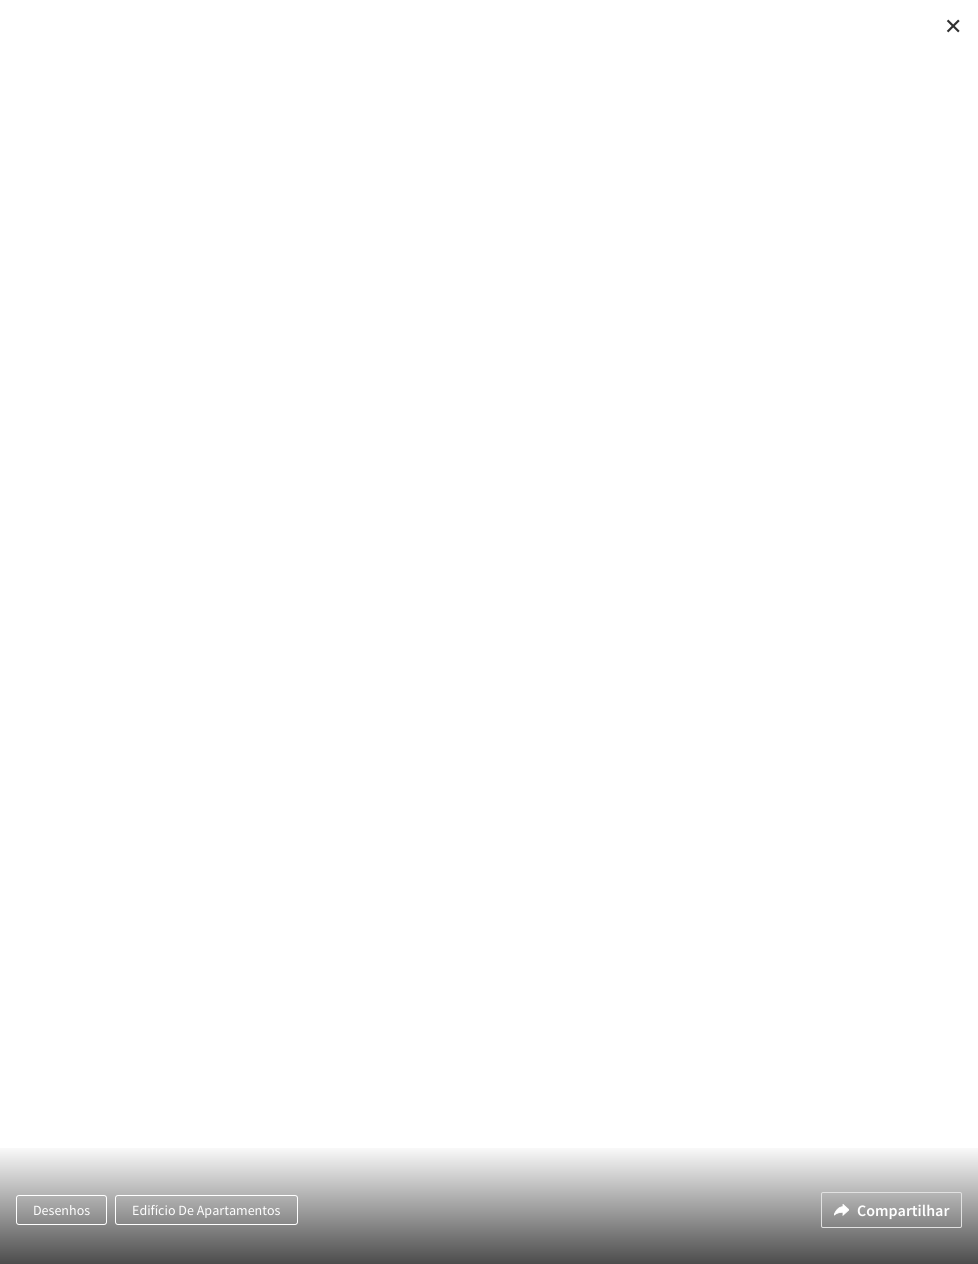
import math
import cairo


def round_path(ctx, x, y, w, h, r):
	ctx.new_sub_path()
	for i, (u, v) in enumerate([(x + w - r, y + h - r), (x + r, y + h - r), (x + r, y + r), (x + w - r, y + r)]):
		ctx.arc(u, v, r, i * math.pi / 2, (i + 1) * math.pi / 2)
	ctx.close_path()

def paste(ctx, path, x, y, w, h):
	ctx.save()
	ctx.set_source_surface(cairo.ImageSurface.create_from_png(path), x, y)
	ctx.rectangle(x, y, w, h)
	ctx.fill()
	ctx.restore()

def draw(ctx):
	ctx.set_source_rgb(1, 1, 1)
	ctx.paint()
	ctx.select_font_face('DejaVu Sans')
	ctx.set_font_size(22)
	ctx.set_source_rgb(0.188, 0.188, 0.188)
	ctx.move_to(944, 34)
	ctx.show_text('✕')
	gradient = cairo.LinearGradient(489, 1264, 489, 1144)
	gradient.add_color_stop_rgba(0, 0, 0, 0, 0.7)
	gradient.add_color_stop_rgba(1, 0, 0, 0, 0)
	ctx.set_source(gradient)
	ctx.rectangle(0, 1148, 978, 116)
	ctx.fill()
	round_path(ctx, 16.5, 1195.5, 90, 29, 2.5)
	ctx.set_source_rgb(1, 1, 1)
	ctx.set_line_width(1)
	ctx.stroke()
	ctx.select_font_face('Source Sans Pro')
	ctx.set_font_size(14)
	ctx.move_to(33, 1215)
	ctx.show_text('Desenhos')
	round_path(ctx, 115.5, 1195.5, 182, 29, 2.5)
	ctx.stroke()
	ctx.move_to(132, 1215)
	ctx.show_text('Edifício De Apartamentos')
	round_path(ctx, 821.5, 1192.5, 140, 35, 1.5)
	ctx.set_source_rgb(0.882, 0.882, 0.882)
	ctx.stroke()
	paste(ctx, 'media/1.png', 834, 1204, 15, 12)
	ctx.select_font_face('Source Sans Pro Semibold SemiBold')
	ctx.set_font_size(16)
	ctx.set_source_rgb(1, 1, 1)
	ctx.move_to(857, 1216)
	ctx.show_text('Compartilhar')


surface = cairo.ImageSurface(cairo.FORMAT_RGB24, 978, 1264)
ctx = cairo.Context(surface)
options = cairo.FontOptions()
options.set_hint_metrics(cairo.HINT_METRICS_OFF)
options.set_hint_style(cairo.HINT_STYLE_NONE)
ctx.set_font_options(options)
ctx.set_miter_limit(4)
draw(ctx)
surface.write_to_png('image.png')
